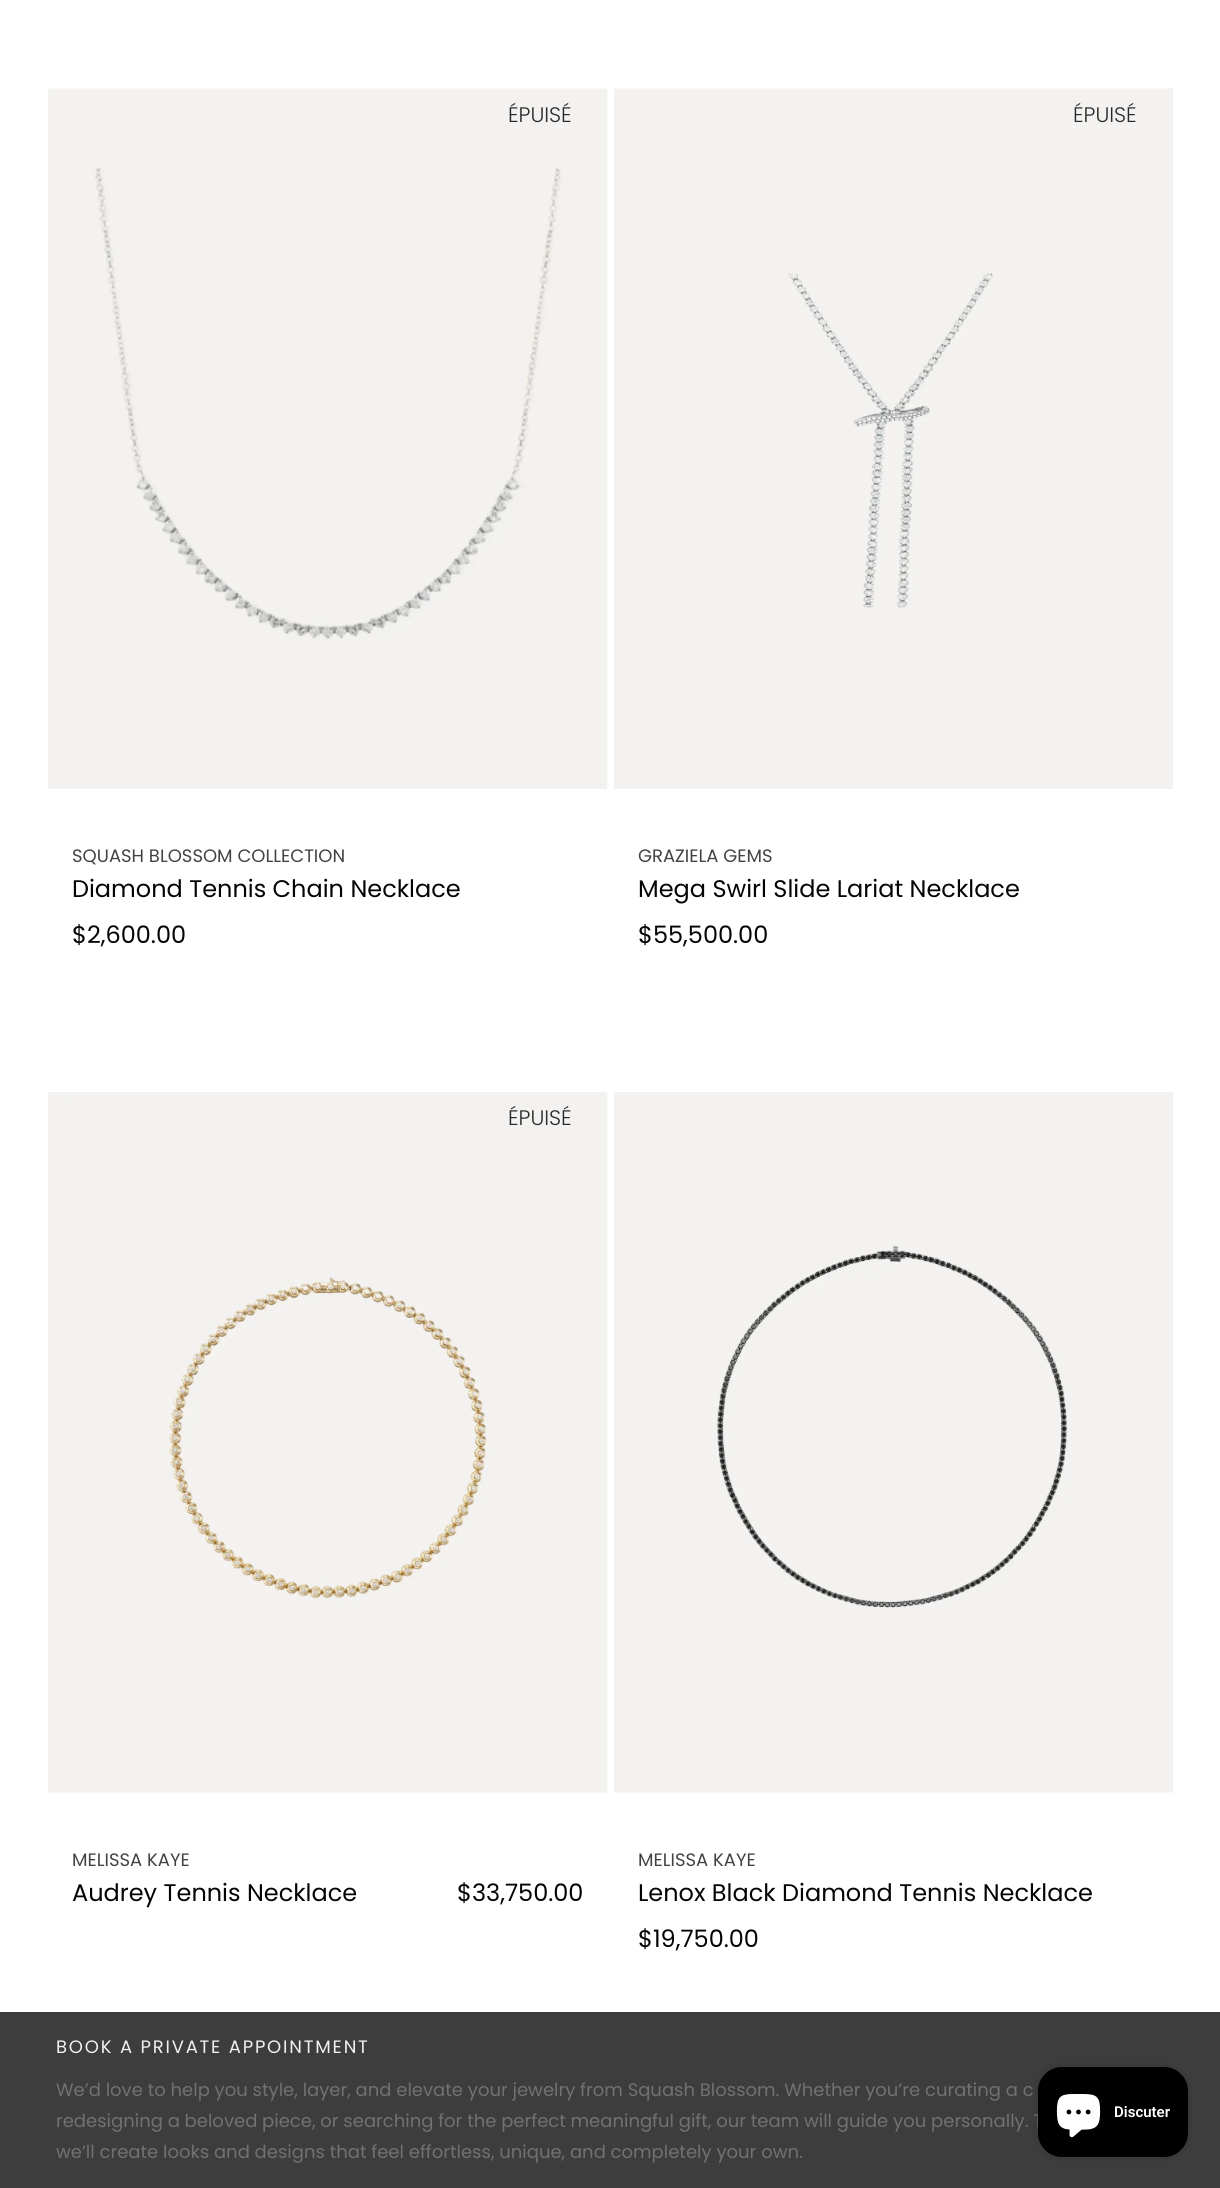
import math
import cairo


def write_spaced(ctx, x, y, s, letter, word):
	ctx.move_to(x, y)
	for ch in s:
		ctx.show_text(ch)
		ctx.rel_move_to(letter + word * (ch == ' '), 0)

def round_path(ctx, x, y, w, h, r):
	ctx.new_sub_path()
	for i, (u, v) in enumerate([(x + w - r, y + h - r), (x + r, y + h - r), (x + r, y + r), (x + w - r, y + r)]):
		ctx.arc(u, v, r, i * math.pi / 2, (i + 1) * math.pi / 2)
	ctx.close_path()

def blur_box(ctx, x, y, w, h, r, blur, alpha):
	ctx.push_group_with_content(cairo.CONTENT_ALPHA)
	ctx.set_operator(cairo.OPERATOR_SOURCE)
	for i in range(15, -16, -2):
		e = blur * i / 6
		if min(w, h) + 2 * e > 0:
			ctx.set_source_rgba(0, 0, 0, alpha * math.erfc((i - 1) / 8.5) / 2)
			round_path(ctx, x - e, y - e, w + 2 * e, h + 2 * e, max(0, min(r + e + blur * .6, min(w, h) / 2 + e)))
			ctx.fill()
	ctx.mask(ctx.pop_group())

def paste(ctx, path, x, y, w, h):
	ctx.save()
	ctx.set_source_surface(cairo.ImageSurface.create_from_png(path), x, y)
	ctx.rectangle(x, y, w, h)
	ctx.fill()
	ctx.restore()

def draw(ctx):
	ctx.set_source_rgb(1, 1, 1)
	ctx.paint()
	paste(ctx, 'media/1.png', 48, 88, 560, 701)
	ctx.select_font_face('Poppins Light')
	ctx.set_font_size(21)
	ctx.set_source_rgb(0.161, 0.161, 0.161)
	ctx.move_to(508, 122)
	ctx.show_text('ÉPUISÉ')
	ctx.select_font_face('Poppins')
	ctx.set_font_size(18)
	ctx.set_source_rgb(0.263, 0.263, 0.263)
	ctx.move_to(72, 862)
	ctx.show_text('SQUASH BLOSSOM COLLECTION')
	ctx.set_font_size(24)
	ctx.set_source_rgb(0.016, 0.016, 0.016)
	ctx.move_to(72, 897)
	ctx.show_text('Diamond Tennis Chain Necklace')
	ctx.move_to(72, 943)
	ctx.show_text('$2,600.00')
	paste(ctx, 'media/2.png', 613, 88, 560, 701)
	ctx.select_font_face('Poppins Light')
	ctx.set_font_size(21)
	ctx.set_source_rgb(0.161, 0.161, 0.161)
	ctx.move_to(1073, 122)
	ctx.show_text('ÉPUISÉ')
	ctx.select_font_face('Poppins')
	ctx.set_font_size(18)
	ctx.set_source_rgb(0.263, 0.263, 0.263)
	ctx.move_to(638, 862)
	ctx.show_text('GRAZIELA GEMS')
	ctx.set_font_size(24)
	ctx.set_source_rgb(0.016, 0.016, 0.016)
	ctx.move_to(638, 897)
	ctx.show_text('Mega Swirl Slide Lariat Necklace')
	ctx.move_to(638, 943)
	ctx.show_text('$55,500.00')
	paste(ctx, 'media/3.png', 48, 1092, 560, 701)
	ctx.select_font_face('Poppins Light')
	ctx.set_font_size(21)
	ctx.set_source_rgb(0.161, 0.161, 0.161)
	ctx.move_to(508, 1125)
	ctx.show_text('ÉPUISÉ')
	ctx.select_font_face('Poppins')
	ctx.set_font_size(18)
	ctx.set_source_rgb(0.263, 0.263, 0.263)
	ctx.move_to(72, 1866)
	ctx.show_text('MELISSA KAYE')
	ctx.set_font_size(24)
	ctx.set_source_rgb(0.016, 0.016, 0.016)
	ctx.move_to(72, 1901)
	ctx.show_text('Audrey Tennis Necklace')
	ctx.move_to(457, 1901)
	ctx.show_text('$33,750.00')
	paste(ctx, 'media/4.png', 613, 1092, 560, 701)
	ctx.set_font_size(18)
	ctx.set_source_rgb(0.263, 0.263, 0.263)
	ctx.move_to(638, 1866)
	ctx.show_text('MELISSA KAYE')
	ctx.set_font_size(24)
	ctx.set_source_rgb(0.016, 0.016, 0.016)
	ctx.move_to(638, 1901)
	ctx.show_text('Lenox Black Diamond Tennis Necklace')
	ctx.move_to(638, 1947)
	ctx.show_text('$19,750.00')
	ctx.set_source_rgb(0.239, 0.239, 0.239)
	ctx.rectangle(0, 2012, 1220, 176)
	ctx.fill()
	ctx.set_font_size(18)
	ctx.set_source_rgb(0.949, 0.945, 0.941)
	write_spaced(ctx, 56, 2053, 'BOOK A PRIVATE APPOINTMENT', 1.8, 0)
	ctx.set_source_rgb(0.443, 0.443, 0.443)
	for x, y, s in [
		(56, 2096, 'We’d love to help you style, layer, and elevate your jewelry from Squash Blossom. Whether you’re curating a c'),
		(56, 2127, 'redesigning a beloved piece, or searching for the perfect meaningful gift, our team will guide you personally. T'),
		(56, 2158, 'we’ll create looks and designs that feel effortless, unique, and completely your own.'),
	]:
		ctx.move_to(x, y)
		ctx.show_text(s)
	ctx.set_source_rgb(0, 0, 0)
	blur_box(ctx, 1038, 2067, 150, 90, 24, 4, 0.15)
	ctx.set_source_rgb(0, 0, 0)
	round_path(ctx, 1038, 2067, 150, 90, 24)
	ctx.fill()
	paste(ctx, 'media/5.png', 1056, 2094, 45, 44)
	ctx.save()
	ctx.rectangle(1115, 2090, 55, 45)
	ctx.clip()
	ctx.select_font_face('Roboto SemiBold')
	ctx.set_font_size(15)
	ctx.set_source_rgb(1, 1, 1)
	ctx.move_to(1114, 2117)
	ctx.show_text('Discuter')
	ctx.restore()


surface = cairo.ImageSurface(cairo.FORMAT_RGB24, 1220, 2188)
ctx = cairo.Context(surface)
options = cairo.FontOptions()
options.set_hint_metrics(cairo.HINT_METRICS_OFF)
options.set_hint_style(cairo.HINT_STYLE_NONE)
ctx.set_font_options(options)
ctx.set_miter_limit(4)
draw(ctx)
surface.write_to_png('image.png')
